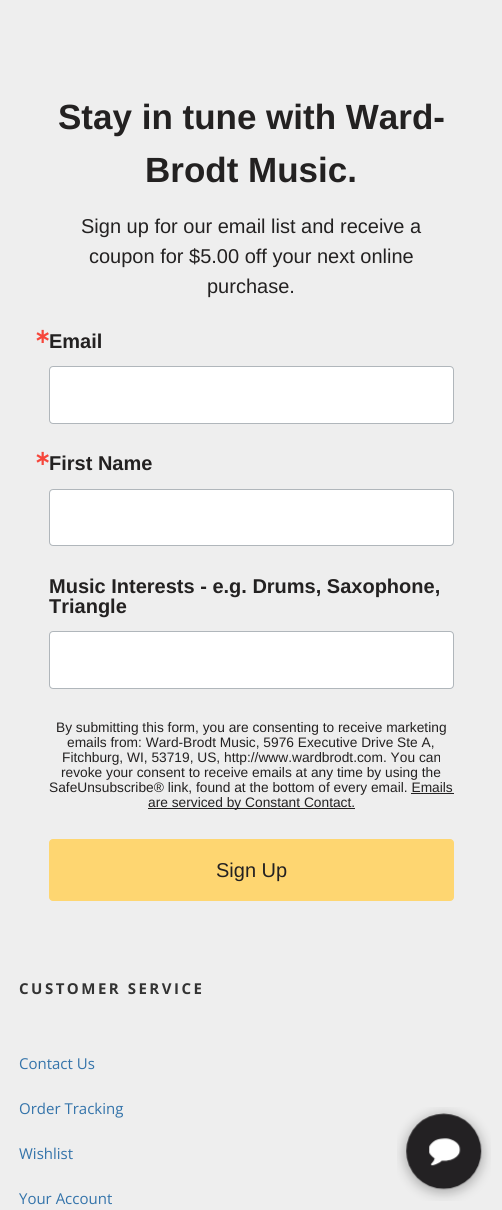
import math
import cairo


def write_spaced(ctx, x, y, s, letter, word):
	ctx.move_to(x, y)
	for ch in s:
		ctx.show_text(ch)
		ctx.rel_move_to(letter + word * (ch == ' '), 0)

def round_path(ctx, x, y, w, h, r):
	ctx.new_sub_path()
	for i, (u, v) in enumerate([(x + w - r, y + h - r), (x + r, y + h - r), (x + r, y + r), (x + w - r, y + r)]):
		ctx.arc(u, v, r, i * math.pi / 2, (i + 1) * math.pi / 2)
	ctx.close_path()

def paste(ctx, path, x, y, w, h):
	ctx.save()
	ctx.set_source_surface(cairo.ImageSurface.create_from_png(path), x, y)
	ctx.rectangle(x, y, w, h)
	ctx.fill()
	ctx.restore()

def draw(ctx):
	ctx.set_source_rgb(0.933, 0.933, 0.933)
	ctx.paint()
	ctx.select_font_face('Liberation Sans', cairo.FONT_SLANT_NORMAL, cairo.FONT_WEIGHT_BOLD)
	ctx.set_font_size(35)
	ctx.set_source_rgb(0.137, 0.129, 0.129)
	ctx.move_to(58, 129)
	ctx.show_text('Stay in tune with Ward-')
	ctx.move_to(145, 182)
	ctx.show_text('Brodt Music.')
	ctx.select_font_face('Liberation Sans')
	ctx.set_font_size(20)
	for x, y, s in [
		(81, 233, 'Sign up for our email list and receive a'),
		(89, 263, 'coupon for $5.00 off your next online'),
		(207, 293, 'purchase.'),
	]:
		ctx.move_to(x, y)
		ctx.show_text(s)
	ctx.select_font_face('DejaVu Sans', cairo.FONT_SLANT_NORMAL, cairo.FONT_WEIGHT_BOLD)
	ctx.set_source_rgb(0.961, 0.275, 0.231)
	ctx.move_to(34, 343)
	ctx.show_text('∗')
	ctx.select_font_face('Liberation Sans', cairo.FONT_SLANT_NORMAL, cairo.FONT_WEIGHT_BOLD)
	ctx.set_source_rgb(0.137, 0.129, 0.129)
	ctx.move_to(49, 348)
	ctx.show_text('Email')
	ctx.set_source_rgb(1, 1, 1)
	round_path(ctx, 49.5, 366.5, 404, 57, 3.5)
	ctx.fill_preserve()
	ctx.set_source_rgb(0.69, 0.714, 0.733)
	ctx.set_line_width(1)
	ctx.stroke()
	ctx.select_font_face('DejaVu Sans', cairo.FONT_SLANT_NORMAL, cairo.FONT_WEIGHT_BOLD)
	ctx.set_source_rgb(0.961, 0.275, 0.231)
	ctx.move_to(34, 465)
	ctx.show_text('∗')
	ctx.select_font_face('Liberation Sans', cairo.FONT_SLANT_NORMAL, cairo.FONT_WEIGHT_BOLD)
	ctx.set_source_rgb(0.137, 0.129, 0.129)
	ctx.move_to(49, 470)
	ctx.show_text('First Name')
	ctx.set_source_rgb(1, 1, 1)
	round_path(ctx, 49.5, 489.5, 404, 56, 3.5)
	ctx.fill_preserve()
	ctx.set_source_rgb(0.69, 0.714, 0.733)
	ctx.stroke()
	ctx.set_source_rgb(0.137, 0.129, 0.129)
	ctx.move_to(49, 593)
	ctx.show_text('Music Interests - e.g. Drums, Saxophone,')
	ctx.move_to(49, 613)
	ctx.show_text('Triangle')
	ctx.set_source_rgb(1, 1, 1)
	round_path(ctx, 49.5, 631.5, 404, 57, 3.5)
	ctx.fill_preserve()
	ctx.set_source_rgb(0.69, 0.714, 0.733)
	ctx.stroke()
	ctx.select_font_face('Liberation Sans')
	ctx.set_font_size(13.75)
	ctx.set_source_rgb(0.137, 0.129, 0.129)
	for x, y, s in [
		(56, 732, 'By submitting this form, you are consenting to receive marketing'),
		(67, 747, 'emails from: Ward-Brodt Music, 5976 Executive Drive Ste A,'),
		(62, 762, 'Fitchburg, WI, 53719, US, http://www.wardbrodt.com. You can'),
		(61, 777, 'revoke your consent to receive emails at any time by using the'),
		(49, 792, 'SafeUnsubscribe® link, found at the bottom of every email. Emails'),
	]:
		ctx.move_to(x, y)
		ctx.show_text(s)
	ctx.rectangle(148, 808, 207, 1)
	ctx.fill()
	ctx.move_to(148, 807)
	ctx.show_text('are serviced by Constant Contact.')
	ctx.rectangle(411, 793, 43, 1)
	ctx.fill()
	ctx.set_source_rgb(0.996, 0.839, 0.443)
	round_path(ctx, 49.5, 839.5, 404, 61, 3.5)
	ctx.fill_preserve()
	ctx.stroke()
	ctx.set_font_size(20)
	ctx.set_source_rgb(0.137, 0.129, 0.129)
	ctx.move_to(216, 877)
	ctx.show_text('Sign Up')
	ctx.select_font_face('Open Sans', cairo.FONT_SLANT_NORMAL, cairo.FONT_WEIGHT_BOLD)
	ctx.set_font_size(15)
	ctx.set_source_rgb(0.2, 0.2, 0.2)
	write_spaced(ctx, 19, 994, 'CUSTOMER SERVICE', 2.5, 0)
	ctx.select_font_face('Open Sans')
	ctx.set_source_rgb(0.2, 0.451, 0.667)
	for x, y, s in [
		(19, 1069, 'Contact Us'),
		(19, 1114, 'Order Tracking'),
		(19, 1159, 'Wishlist'),
		(19, 1204, 'Your Account'),
	]:
		ctx.move_to(x, y)
		ctx.show_text(s)
	paste(ctx, 'media/1.png', 397, 1107, 94, 94)


surface = cairo.ImageSurface(cairo.FORMAT_RGB24, 502, 1210)
ctx = cairo.Context(surface)
options = cairo.FontOptions()
options.set_hint_metrics(cairo.HINT_METRICS_OFF)
options.set_hint_style(cairo.HINT_STYLE_NONE)
ctx.set_font_options(options)
ctx.set_miter_limit(4)
draw(ctx)
surface.write_to_png('image.png')
